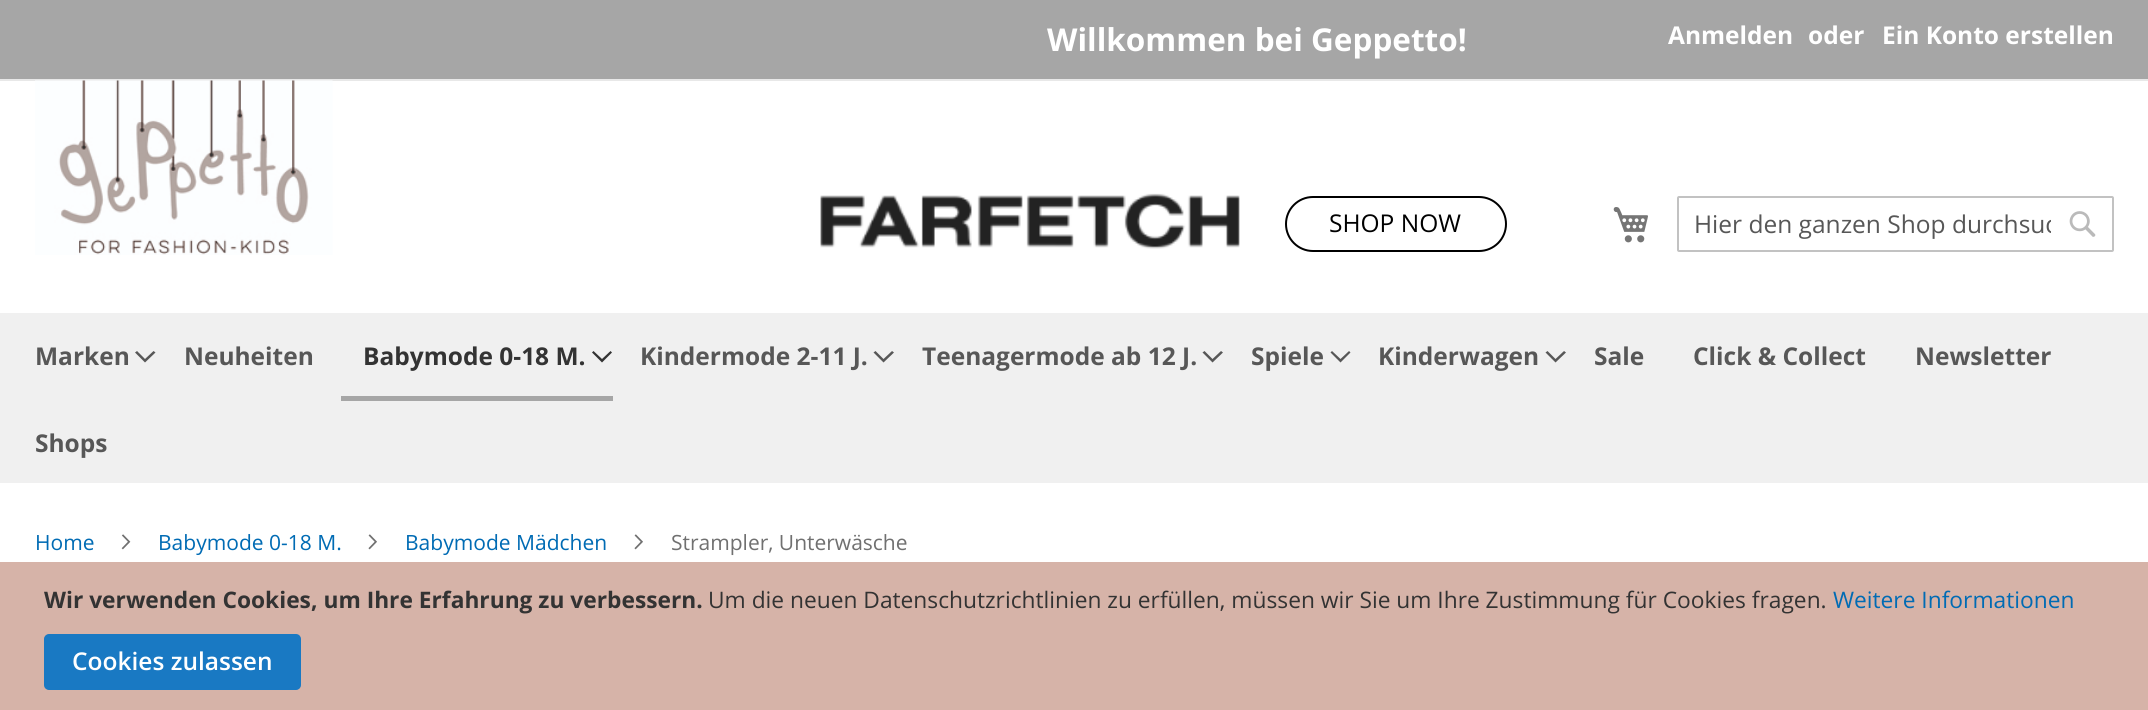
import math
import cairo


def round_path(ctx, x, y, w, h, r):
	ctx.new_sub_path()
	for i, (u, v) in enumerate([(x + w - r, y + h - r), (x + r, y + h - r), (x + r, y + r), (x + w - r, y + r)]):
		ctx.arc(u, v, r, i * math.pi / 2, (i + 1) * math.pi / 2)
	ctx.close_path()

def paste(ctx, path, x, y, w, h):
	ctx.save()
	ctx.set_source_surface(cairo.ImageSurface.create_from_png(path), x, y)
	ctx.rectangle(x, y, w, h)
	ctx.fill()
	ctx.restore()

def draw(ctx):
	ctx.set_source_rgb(1, 1, 1)
	ctx.paint()
	ctx.set_source_rgb(0.651, 0.651, 0.651)
	ctx.rectangle(0, 0, 2148, 79)
	ctx.fill()
	ctx.set_source_rgb(0.91, 0.91, 0.91)
	ctx.rectangle(0, 79, 2148, 2)
	ctx.fill()
	ctx.select_font_face('Open Sans', cairo.FONT_SLANT_NORMAL, cairo.FONT_WEIGHT_BOLD)
	ctx.set_font_size(31.5)
	ctx.set_source_rgb(1, 1, 1)
	ctx.move_to(1047, 51)
	ctx.show_text('Willkommen bei Geppetto!')
	ctx.set_font_size(24.5)
	for x, y, s in [
		(1668, 44, 'Anmelden'),
		(1808, 44, 'oder'),
		(1882, 44, 'Ein Konto erstellen'),
	]:
		ctx.move_to(x, y)
		ctx.show_text(s)
	paste(ctx, 'media/1.png', 35, 80, 298, 175)
	paste(ctx, 'media/2.png', 820, 193, 420, 56)
	round_path(ctx, 1286, 197, 220, 54, 27)
	ctx.set_source_rgb(0, 0, 0)
	ctx.stroke()
	ctx.select_font_face('Open Sans')
	ctx.move_to(1329, 232)
	ctx.show_text('SHOP NOW')
	paste(ctx, 'media/3.png', 1613, 207, 35, 36)
	round_path(ctx, 1678, 197, 435, 54, 1)
	ctx.set_source_rgb(0.761, 0.761, 0.761)
	ctx.stroke()
	ctx.save()
	ctx.rectangle(1694, 207, 357, 33)
	ctx.clip()
	ctx.set_source_rgb(0.341, 0.341, 0.341)
	ctx.move_to(1694, 233)
	ctx.show_text('Hier den ganzen Shop durchsuc')
	ctx.restore()
	paste(ctx, 'media/4.png', 2069, 211, 27, 26)
	ctx.set_source_rgb(0.941, 0.941, 0.941)
	ctx.rectangle(0, 313, 2148, 170)
	ctx.fill()
	ctx.select_font_face('Open Sans', cairo.FONT_SLANT_NORMAL, cairo.FONT_WEIGHT_BOLD)
	ctx.set_source_rgb(0.341, 0.341, 0.341)
	ctx.move_to(35, 365)
	ctx.show_text('Marken')
	ctx.new_path()
	ctx.move_to(145, 359)
	ctx.line_to(137, 351)
	ctx.line_to(135, 352.5)
	ctx.line_to(145, 362.5)
	ctx.line_to(155.5, 352.5)
	ctx.line_to(153.5, 351)
	ctx.close_path()
	ctx.fill()
	ctx.move_to(184, 365)
	ctx.show_text('Neuheiten')
	ctx.set_source_rgb(0.651, 0.651, 0.651)
	ctx.rectangle(341, 396, 272, 5)
	ctx.fill()
	ctx.set_source_rgb(0.2, 0.2, 0.2)
	ctx.move_to(363, 365)
	ctx.show_text('Babymode 0-18 M.')
	ctx.new_path()
	ctx.move_to(602, 359)
	ctx.line_to(593.5, 351)
	ctx.line_to(592, 352.5)
	ctx.line_to(602, 362.5)
	ctx.line_to(612, 352.5)
	ctx.line_to(610.5, 351)
	ctx.close_path()
	ctx.fill()
	ctx.set_source_rgb(0.341, 0.341, 0.341)
	ctx.move_to(640, 365)
	ctx.show_text('Kindermode 2-11 J.')
	ctx.new_path()
	ctx.move_to(883.5, 359)
	ctx.line_to(875.5, 351)
	ctx.line_to(873.5, 352.5)
	ctx.line_to(883.5, 362.5)
	ctx.line_to(894, 352.5)
	ctx.line_to(892, 351)
	ctx.close_path()
	ctx.fill()
	ctx.move_to(922, 365)
	ctx.show_text('Teenagermode ab 12 J.')
	ctx.new_path()
	ctx.move_to(1212.5, 359)
	ctx.line_to(1204.5, 351)
	ctx.line_to(1202.5, 352.5)
	ctx.line_to(1212.5, 362.5)
	ctx.line_to(1223, 352.5)
	ctx.line_to(1221, 351)
	ctx.close_path()
	ctx.fill()
	ctx.move_to(1251, 365)
	ctx.show_text('Spiele')
	ctx.new_path()
	ctx.move_to(1340.5, 359)
	ctx.line_to(1332, 351)
	ctx.line_to(1330.5, 352.5)
	ctx.line_to(1340.5, 362.5)
	ctx.line_to(1350.5, 352.5)
	ctx.line_to(1349, 351)
	ctx.close_path()
	ctx.fill()
	ctx.move_to(1378, 365)
	ctx.show_text('Kinderwagen')
	ctx.new_path()
	ctx.move_to(1555.5, 359)
	ctx.line_to(1547.5, 351)
	ctx.line_to(1545.5, 352.5)
	ctx.line_to(1555.5, 362.5)
	ctx.line_to(1566, 352.5)
	ctx.line_to(1564, 351)
	ctx.close_path()
	ctx.fill()
	for x, y, s in [
		(1594, 365, 'Sale'),
		(1693, 365, 'Click & Collect'),
		(1915, 365, 'Newsletter'),
		(35, 452, 'Shops'),
	]:
		ctx.move_to(x, y)
		ctx.show_text(s)
	ctx.select_font_face('Open Sans')
	ctx.set_font_size(21)
	ctx.set_source_rgb(0, 0.42, 0.706)
	ctx.move_to(35, 550)
	ctx.show_text('Home')
	paste(ctx, 'media/5.png', 121, 534, 10, 16)
	ctx.move_to(158, 550)
	ctx.show_text('Babymode 0-18 M.')
	paste(ctx, 'media/6.png', 368, 534, 9, 16)
	ctx.move_to(405, 550)
	ctx.show_text('Babymode Mädchen')
	paste(ctx, 'media/6.png', 634, 534, 9, 16)
	ctx.set_source_rgb(0.439, 0.439, 0.439)
	ctx.move_to(671, 550)
	ctx.show_text('Strampler, Unterwäsche')
	ctx.set_source_rgb(0.839, 0.702, 0.659)
	ctx.rectangle(0, 562, 2148, 148)
	ctx.fill()
	ctx.select_font_face('Open Sans', cairo.FONT_SLANT_NORMAL, cairo.FONT_WEIGHT_BOLD)
	ctx.set_font_size(22.75)
	ctx.set_source_rgb(0.2, 0.2, 0.2)
	ctx.move_to(44, 608)
	ctx.show_text('Wir verwenden Cookies, um Ihre Erfahrung zu verbessern.')
	ctx.select_font_face('Open Sans')
	ctx.move_to(708, 608)
	ctx.show_text('Um die neuen Datenschutzrichtlinien zu erfüllen, müssen wir Sie um Ihre Zustimmung für Cookies fragen.')
	ctx.set_source_rgb(0, 0.42, 0.706)
	ctx.move_to(1833, 608)
	ctx.show_text('Weitere Informationen')
	ctx.set_source_rgb(0.098, 0.475, 0.765)
	round_path(ctx, 45, 635, 255, 54, 4)
	ctx.fill_preserve()
	ctx.stroke()
	ctx.select_font_face('Open Sans SemiBold')
	ctx.set_font_size(24.5)
	ctx.set_source_rgb(1, 1, 1)
	ctx.move_to(72, 670)
	ctx.show_text('Cookies zulassen')


surface = cairo.ImageSurface(cairo.FORMAT_RGB24, 2148, 710)
ctx = cairo.Context(surface)
options = cairo.FontOptions()
options.set_hint_metrics(cairo.HINT_METRICS_OFF)
options.set_hint_style(cairo.HINT_STYLE_NONE)
ctx.set_font_options(options)
ctx.set_miter_limit(4)
draw(ctx)
surface.write_to_png('image.png')
